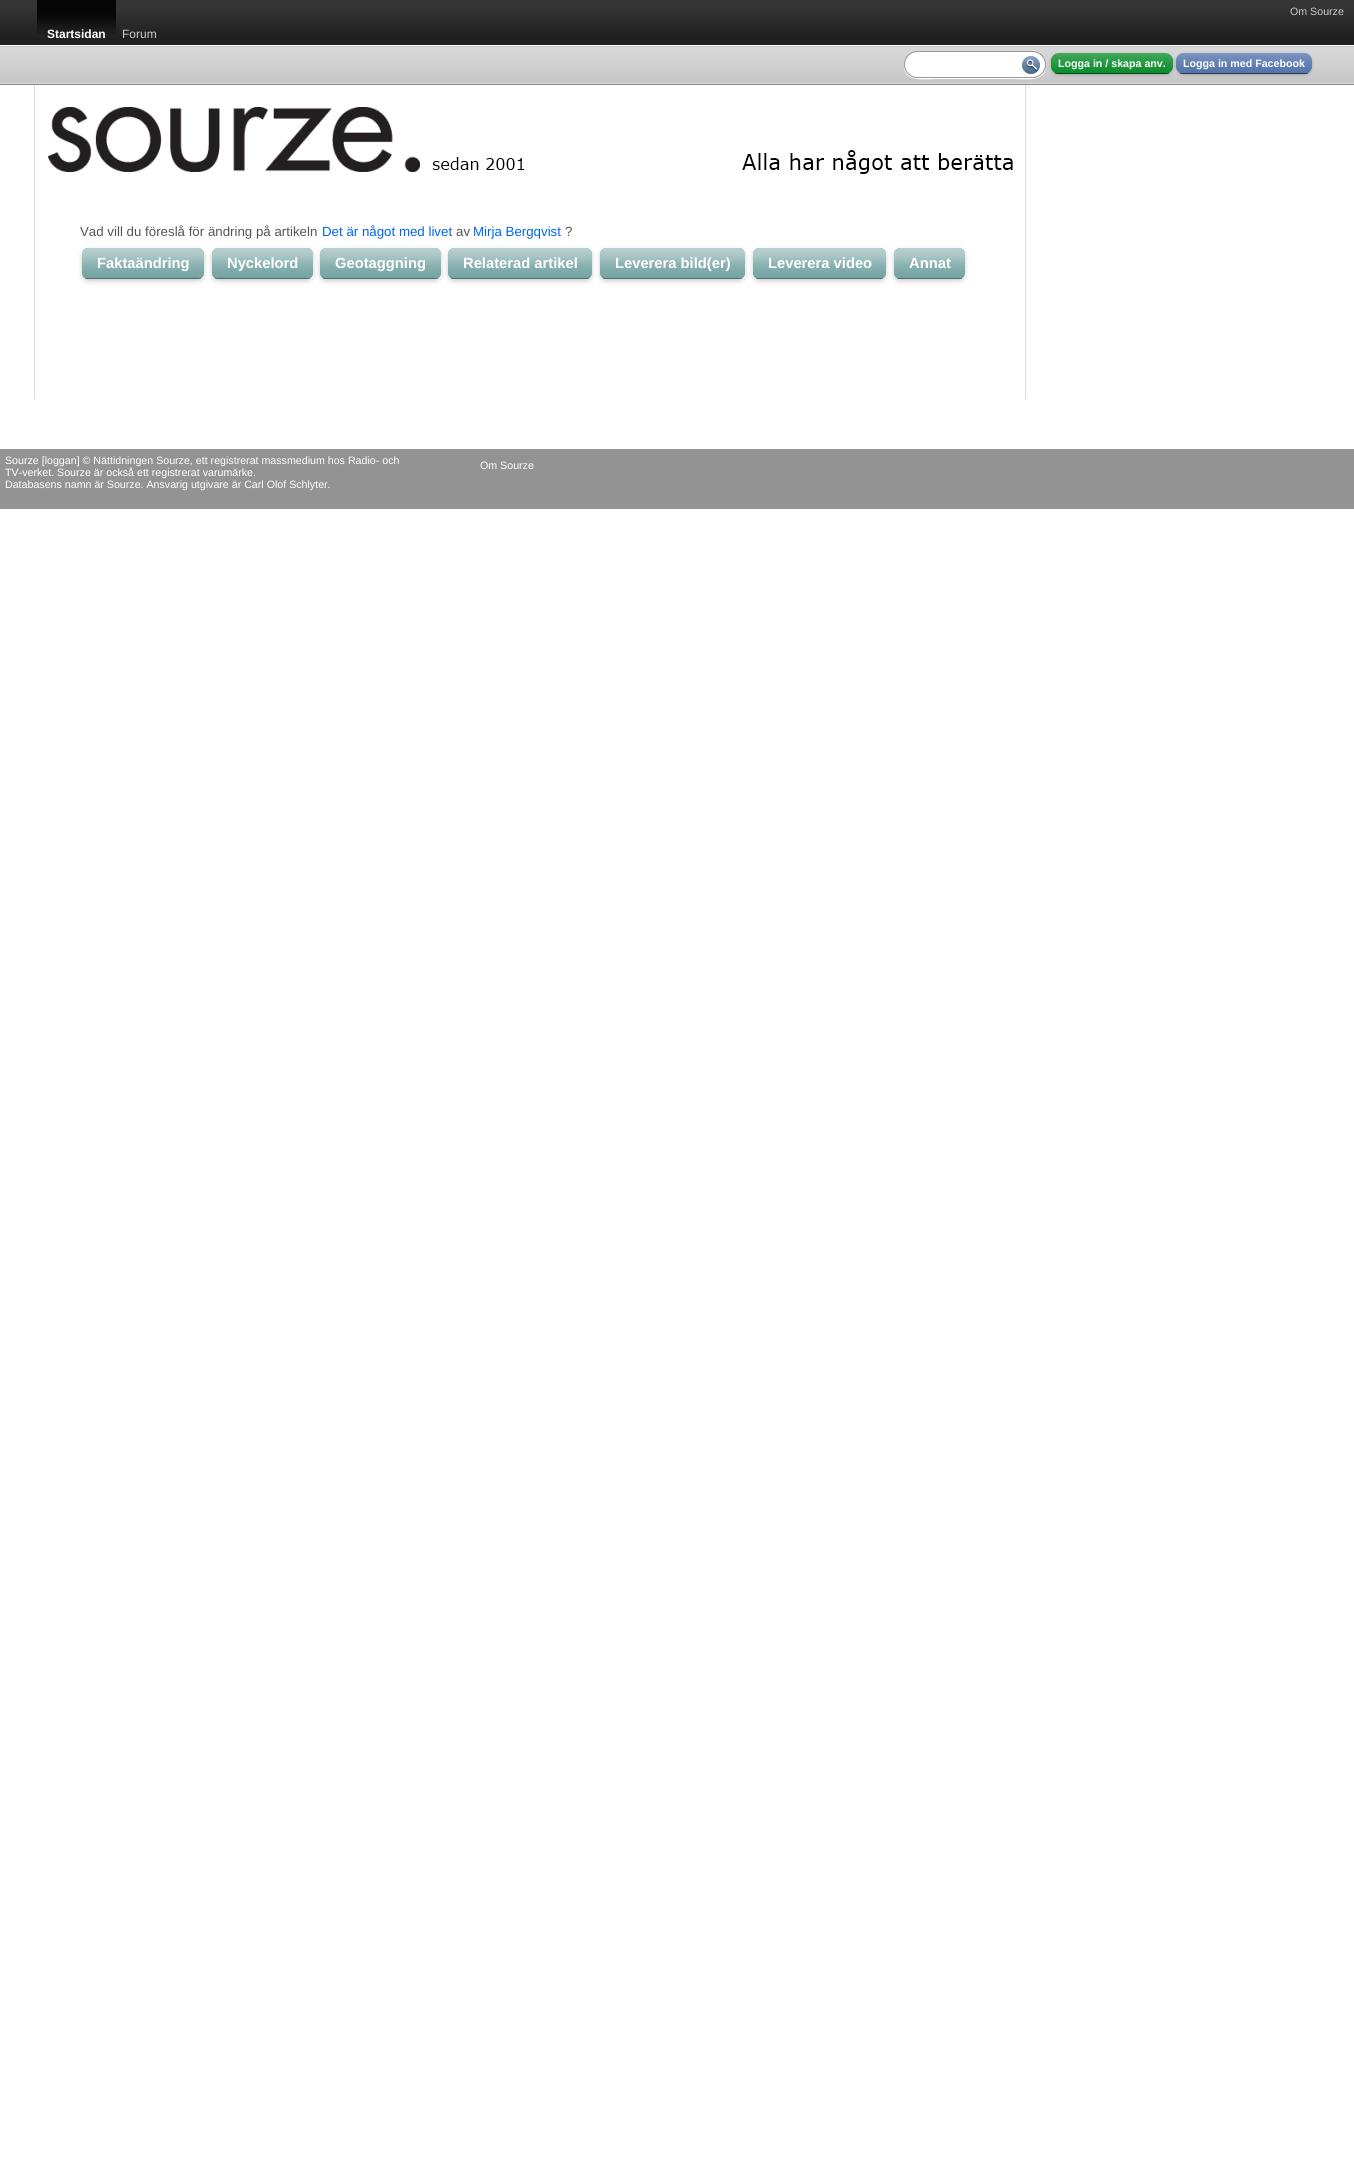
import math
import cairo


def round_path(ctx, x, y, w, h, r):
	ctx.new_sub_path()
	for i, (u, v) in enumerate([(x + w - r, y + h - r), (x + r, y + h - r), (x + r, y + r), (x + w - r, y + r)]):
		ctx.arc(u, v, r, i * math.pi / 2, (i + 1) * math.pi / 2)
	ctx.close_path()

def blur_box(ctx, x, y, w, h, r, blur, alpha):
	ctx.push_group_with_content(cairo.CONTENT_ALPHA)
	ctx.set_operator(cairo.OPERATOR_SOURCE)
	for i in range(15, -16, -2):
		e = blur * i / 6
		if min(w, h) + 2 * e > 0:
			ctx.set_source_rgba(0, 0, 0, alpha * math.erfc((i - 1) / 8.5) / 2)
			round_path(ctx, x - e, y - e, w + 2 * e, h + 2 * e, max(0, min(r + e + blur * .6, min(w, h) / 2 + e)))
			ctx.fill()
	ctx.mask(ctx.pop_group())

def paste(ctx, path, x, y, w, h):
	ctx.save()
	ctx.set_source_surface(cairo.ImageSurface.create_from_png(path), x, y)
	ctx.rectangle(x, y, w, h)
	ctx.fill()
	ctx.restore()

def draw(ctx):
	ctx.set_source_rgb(1, 1, 1)
	ctx.paint()
	paste(ctx, 'media/1.png', 0, 0, 1354, 45)
	ctx.select_font_face('Liberation Sans')
	ctx.set_font_size(10.65)
	ctx.set_source_rgb(0.8, 0.8, 0.8)
	ctx.move_to(1290, 15)
	ctx.show_text('Om Sourze')
	paste(ctx, 'media/2.png', 37, 0, 79, 34)
	ctx.select_font_face('Liberation Sans', cairo.FONT_SLANT_NORMAL, cairo.FONT_WEIGHT_BOLD)
	ctx.set_font_size(12)
	ctx.set_source_rgb(1, 1, 1)
	ctx.move_to(47, 38)
	ctx.show_text('Startsidan')
	ctx.select_font_face('Liberation Sans')
	ctx.set_source_rgb(0.8, 0.8, 0.8)
	ctx.move_to(122, 38)
	ctx.show_text('Forum')
	paste(ctx, 'media/3.png', 0, 45, 1354, 40)
	ctx.set_source_rgb(0, 0, 0)
	blur_box(ctx, 1051, 54, 122, 21, 8, 1.5, 0.2)
	ctx.set_source_rgb(1, 1, 1)
	ctx.new_path()
	ctx.move_to(904, 65)
	ctx.curve_to(903, 83, 926, 79, 937, 79)
	ctx.line_to(1013, 79)
	ctx.curve_to(1024, 79, 1047, 83, 1046, 65)
	ctx.curve_to(1046, 72, 1040, 78, 1032, 78)
	ctx.line_to(918, 78)
	ctx.curve_to(910, 78, 904, 72, 904, 65)
	ctx.close_path()
	ctx.fill()
	round_path(ctx, 904.5, 51.5, 141, 26, 13)
	ctx.fill_preserve()
	ctx.set_source_rgb(0.6, 0.6, 0.6)
	ctx.set_line_width(1)
	ctx.stroke()
	paste(ctx, 'media/4.png', 1022, 56, 18, 18)
	ctx.set_source_rgb(0, 0.533, 0.133)
	round_path(ctx, 1051, 53, 122, 21, 8)
	ctx.fill()
	paste(ctx, 'media/5.png', 1051, 53, 122, 21)
	ctx.set_source_rgba(0, 0, 0, 0.5)
	ctx.rectangle(1055, 73, 114, 1)
	ctx.fill()
	ctx.select_font_face('Liberation Sans', cairo.FONT_SLANT_NORMAL, cairo.FONT_WEIGHT_BOLD)
	ctx.set_font_size(10.65)
	ctx.set_source_rgb(1, 1, 1)
	ctx.move_to(1058, 67)
	ctx.show_text('Logga in / skapa anv.')
	ctx.set_source_rgb(0, 0, 0)
	blur_box(ctx, 1176, 54, 136, 21, 8, 1.5, 0.2)
	ctx.set_source_rgb(0.298, 0.431, 0.663)
	round_path(ctx, 1176, 53, 136, 21, 8)
	ctx.fill()
	paste(ctx, 'media/6.png', 1176, 53, 136, 21)
	ctx.set_source_rgba(0, 0, 0, 0.5)
	ctx.rectangle(1180, 73, 128, 1)
	ctx.fill()
	ctx.set_source_rgb(1, 1, 1)
	ctx.move_to(1183, 67)
	ctx.show_text('Logga in med Facebook')
	ctx.set_source_rgb(0.867, 0.867, 0.867)
	ctx.rectangle(34, 85, 1, 314)
	ctx.fill()
	ctx.rectangle(1025, 85, 1, 314)
	ctx.fill()
	paste(ctx, 'media/7.png', 48, 107, 965, 67)
	ctx.select_font_face('Liberation Sans')
	ctx.set_font_size(13.3)
	ctx.set_source_rgb(0.333, 0.333, 0.333)
	ctx.move_to(80, 236)
	ctx.show_text('Vad vill du föreslå för ändring på artikeln')
	ctx.set_source_rgb(0, 0.4, 0.933)
	ctx.move_to(322, 236)
	ctx.show_text('Det är något med livet')
	ctx.set_source_rgb(0.333, 0.333, 0.333)
	ctx.move_to(456, 236)
	ctx.show_text('av')
	ctx.set_source_rgb(0, 0.4, 0.933)
	ctx.move_to(473, 236)
	ctx.show_text('Mirja Bergqvist')
	ctx.set_source_rgb(0.333, 0.333, 0.333)
	ctx.move_to(565, 236)
	ctx.show_text('?')
	ctx.set_source_rgb(0, 0, 0)
	blur_box(ctx, 82, 250, 122, 31, 6, 2.5, 0.2)
	ctx.set_source_rgb(0.4, 0.6, 0.6)
	round_path(ctx, 82, 248, 122, 31, 6)
	ctx.fill()
	paste(ctx, 'media/8.png', 82, 248, 122, 31)
	ctx.set_source_rgba(0, 0, 0, 0.3)
	ctx.rectangle(85, 278, 116, 1)
	ctx.fill()
	ctx.select_font_face('Liberation Sans', cairo.FONT_SLANT_NORMAL, cairo.FONT_WEIGHT_BOLD)
	ctx.set_font_size(14.75)
	ctx.set_source_rgb(1, 1, 1)
	ctx.move_to(97, 268)
	ctx.show_text('Faktaändring')
	ctx.set_source_rgb(0, 0, 0)
	blur_box(ctx, 212, 250, 101, 31, 6, 2.5, 0.2)
	ctx.set_source_rgb(0.4, 0.6, 0.6)
	round_path(ctx, 212, 248, 101, 31, 6)
	ctx.fill()
	paste(ctx, 'media/9.png', 212, 248, 101, 31)
	ctx.set_source_rgba(0, 0, 0, 0.3)
	ctx.rectangle(215, 278, 95, 1)
	ctx.fill()
	ctx.set_source_rgb(1, 1, 1)
	ctx.move_to(227, 268)
	ctx.show_text('Nyckelord')
	ctx.set_source_rgb(0, 0, 0)
	blur_box(ctx, 320, 250, 121, 31, 6, 2.5, 0.2)
	ctx.set_source_rgb(0.4, 0.6, 0.6)
	round_path(ctx, 320, 248, 121, 31, 6)
	ctx.fill()
	paste(ctx, 'media/10.png', 320, 248, 121, 31)
	ctx.set_source_rgba(0, 0, 0, 0.3)
	ctx.rectangle(323, 278, 115, 1)
	ctx.fill()
	ctx.set_source_rgb(1, 1, 1)
	ctx.move_to(335, 268)
	ctx.show_text('Geotaggning')
	ctx.set_source_rgb(0, 0, 0)
	blur_box(ctx, 448, 250, 144, 31, 6, 2.5, 0.2)
	ctx.set_source_rgb(0.4, 0.6, 0.6)
	round_path(ctx, 448, 248, 144, 31, 6)
	ctx.fill()
	paste(ctx, 'media/11.png', 448, 248, 144, 31)
	ctx.set_source_rgba(0, 0, 0, 0.3)
	ctx.rectangle(451, 278, 138, 1)
	ctx.fill()
	ctx.set_source_rgb(1, 1, 1)
	ctx.move_to(463, 268)
	ctx.show_text('Relaterad artikel')
	ctx.set_source_rgb(0, 0, 0)
	blur_box(ctx, 600, 250, 145, 31, 6, 2.5, 0.2)
	ctx.set_source_rgb(0.4, 0.6, 0.6)
	round_path(ctx, 600, 248, 145, 31, 6)
	ctx.fill()
	paste(ctx, 'media/12.png', 600, 248, 145, 31)
	ctx.set_source_rgba(0, 0, 0, 0.3)
	ctx.rectangle(603, 278, 139, 1)
	ctx.fill()
	ctx.set_source_rgb(1, 1, 1)
	ctx.move_to(615, 268)
	ctx.show_text('Leverera bild(er)')
	ctx.set_source_rgb(0, 0, 0)
	blur_box(ctx, 753, 250, 133, 31, 6, 2.5, 0.2)
	ctx.set_source_rgb(0.4, 0.6, 0.6)
	round_path(ctx, 753, 248, 133, 31, 6)
	ctx.fill()
	paste(ctx, 'media/13.png', 753, 248, 133, 31)
	ctx.set_source_rgba(0, 0, 0, 0.3)
	ctx.rectangle(756, 278, 127, 1)
	ctx.fill()
	ctx.set_source_rgb(1, 1, 1)
	ctx.move_to(768, 268)
	ctx.show_text('Leverera video')
	ctx.set_source_rgb(0, 0, 0)
	blur_box(ctx, 894, 250, 71, 31, 6, 2.5, 0.2)
	ctx.set_source_rgb(0.4, 0.6, 0.6)
	round_path(ctx, 894, 248, 71, 31, 6)
	ctx.fill()
	paste(ctx, 'media/14.png', 894, 248, 71, 31)
	ctx.set_source_rgba(0, 0, 0, 0.3)
	ctx.rectangle(897, 278, 65, 1)
	ctx.fill()
	ctx.set_source_rgb(1, 1, 1)
	ctx.move_to(909, 268)
	ctx.show_text('Annat')
	ctx.set_source_rgb(0.576, 0.576, 0.576)
	ctx.rectangle(0, 449, 1354, 60)
	ctx.fill()
	ctx.select_font_face('Liberation Sans')
	ctx.set_font_size(10.65)
	ctx.set_source_rgb(1, 1, 1)
	for x, y, s in [
		(5, 464, 'Sourze [loggan] © Nättidningen Sourze, ett registrerat massmedium hos Radio- och'),
		(5, 476, 'TV-verket. Sourze är också ett registrerat varumärke.'),
		(5, 488, 'Databasens namn är Sourze. Ansvarig utgivare är Carl Olof Schlyter.'),
		(480, 469, 'Om Sourze'),
	]:
		ctx.move_to(x, y)
		ctx.show_text(s)


surface = cairo.ImageSurface(cairo.FORMAT_RGB24, 1354, 2184)
ctx = cairo.Context(surface)
options = cairo.FontOptions()
options.set_hint_metrics(cairo.HINT_METRICS_OFF)
options.set_hint_style(cairo.HINT_STYLE_NONE)
ctx.set_font_options(options)
ctx.set_miter_limit(4)
draw(ctx)
surface.write_to_png('image.png')
